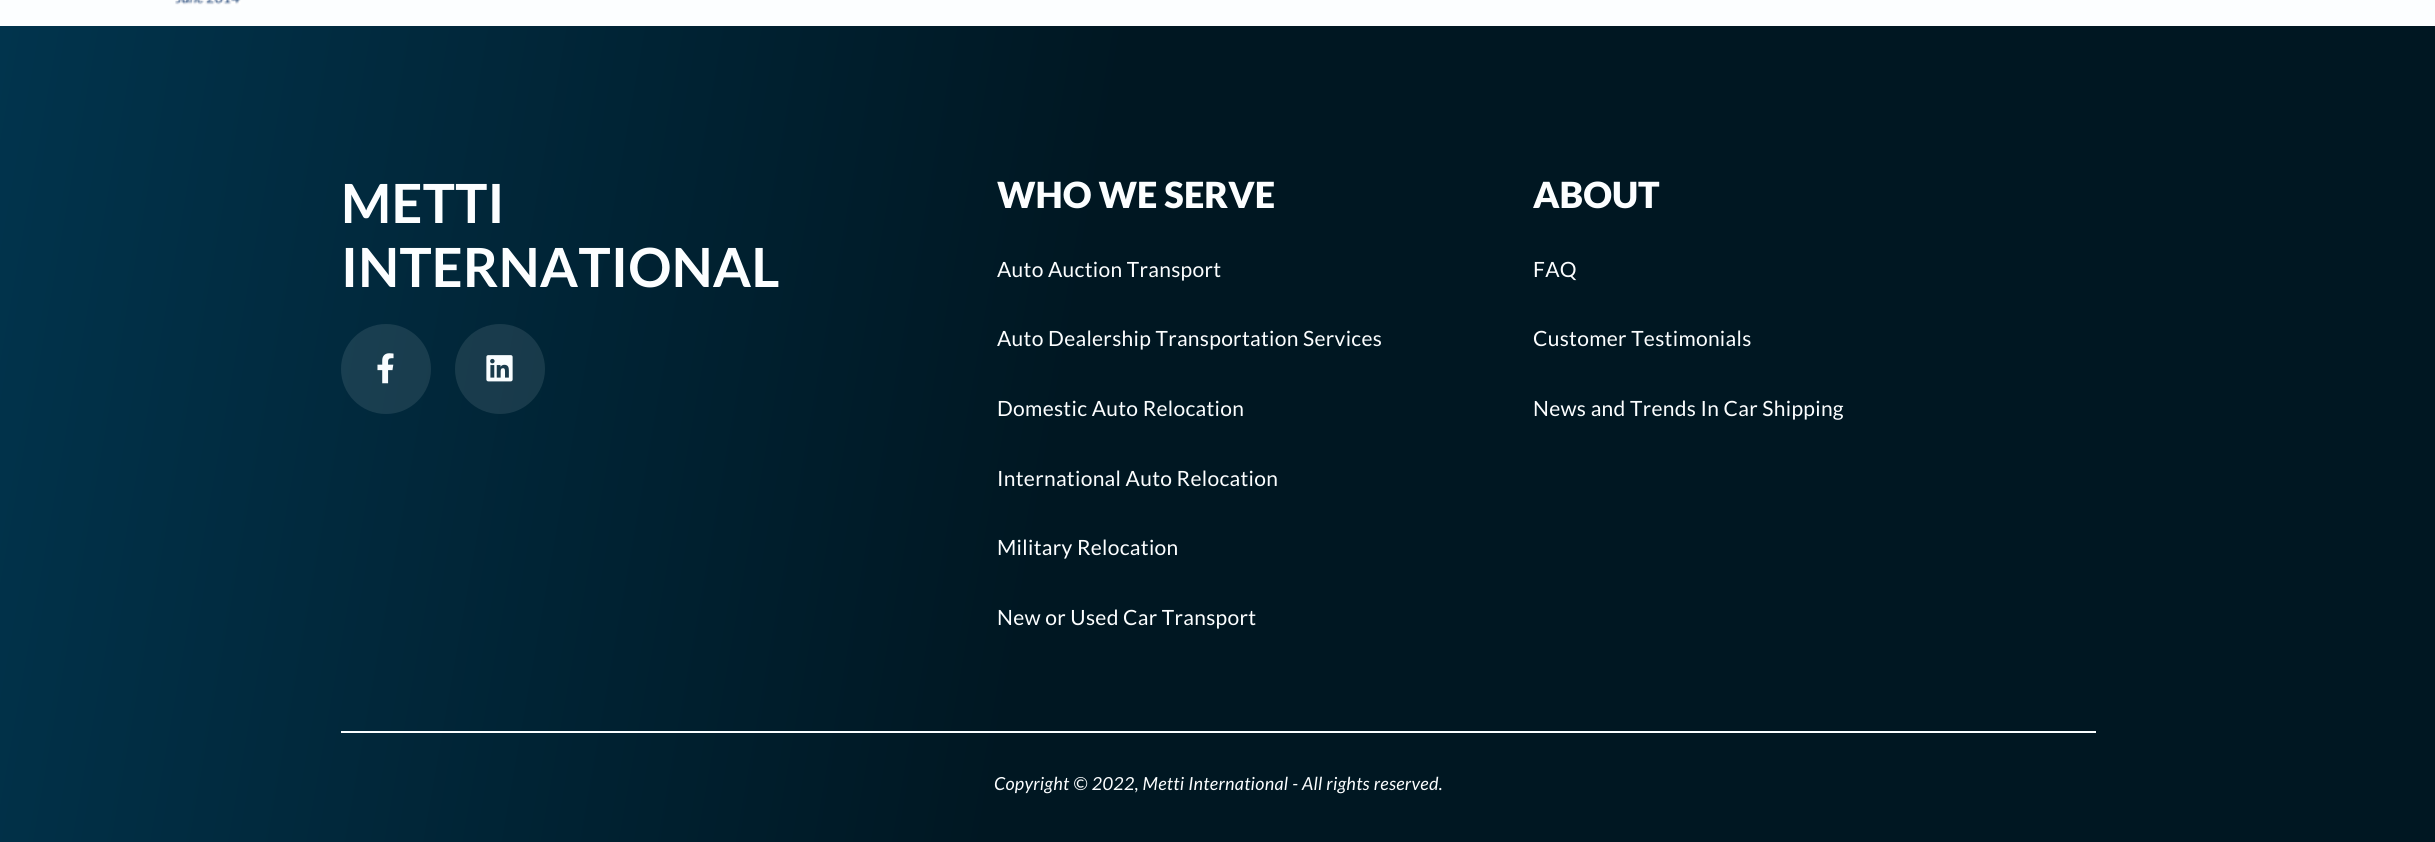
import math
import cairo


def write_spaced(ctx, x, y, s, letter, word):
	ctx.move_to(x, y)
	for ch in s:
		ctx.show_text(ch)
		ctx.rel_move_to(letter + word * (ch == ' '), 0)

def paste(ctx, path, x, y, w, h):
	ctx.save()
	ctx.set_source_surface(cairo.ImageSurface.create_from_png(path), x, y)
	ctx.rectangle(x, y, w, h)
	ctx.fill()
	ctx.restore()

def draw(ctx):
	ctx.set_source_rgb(0.988, 0.996, 1)
	ctx.paint()
	paste(ctx, 'media/1.png', 175, 0, 66, 5)
	gradient = cairo.LinearGradient(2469, 655, -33, 214)
	gradient.add_color_stop_rgba(0.56, 0, 0.09, 0.133, 1)
	gradient.add_color_stop_rgba(1, 0.004, 0.204, 0.302, 1)
	ctx.set_source(gradient)
	ctx.rectangle(0, 26, 2435, 816)
	ctx.fill()
	ctx.select_font_face('Lato', cairo.FONT_SLANT_NORMAL, cairo.FONT_WEIGHT_BOLD)
	ctx.set_font_size(54)
	ctx.set_source_rgb(0.988, 0.996, 1)
	write_spaced(ctx, 341, 223, 'METTI', 0.3, 0)
	write_spaced(ctx, 341, 287, 'INTERNATIONAL', 0.3, 0)
	ctx.set_source_rgba(0.976, 0.992, 1, 0.1)
	ctx.new_path()
	ctx.arc(386, 369, 45, 0, 2 * math.pi)
	ctx.fill()
	paste(ctx, 'media/2.png', 377, 353, 17, 31)
	ctx.arc(500, 369, 45, 0, 2 * math.pi)
	ctx.fill()
	paste(ctx, 'media/3.png', 486, 355, 27, 27)
	ctx.select_font_face('Lato Black')
	ctx.set_font_size(36)
	ctx.set_source_rgb(0.988, 0.996, 1)
	ctx.move_to(997, 208)
	ctx.show_text('WHO WE SERVE')
	ctx.select_font_face('Lato')
	ctx.set_font_size(21)
	for x, y, s in [
		(997, 277, 'Auto Auction Transport'),
		(997, 346, 'Auto Dealership Transportation Services'),
		(997, 416, 'Domestic Auto Relocation'),
		(997, 486, 'International Auto Relocation'),
		(997, 555, 'Military Relocation'),
		(997, 625, 'New or Used Car Transport'),
	]:
		write_spaced(ctx, x, y, s, 0.3, 0)
	ctx.select_font_face('Lato Black')
	ctx.set_font_size(36)
	ctx.move_to(1533, 208)
	ctx.show_text('ABOUT')
	ctx.select_font_face('Lato')
	ctx.set_font_size(21)
	for x, y, s in [
		(1533, 277, 'FAQ'),
		(1533, 346, 'Customer Testimonials'),
		(1533, 416, 'News and Trends In Car Shipping'),
	]:
		write_spaced(ctx, x, y, s, 0.3, 0)
	ctx.set_source_rgb(0.976, 0.992, 1)
	ctx.rectangle(341, 731, 1755, 2)
	ctx.fill()
	ctx.select_font_face('Lato', cairo.FONT_SLANT_ITALIC)
	ctx.set_font_size(18)
	ctx.set_source_rgb(0.988, 0.996, 1)
	write_spaced(ctx, 994, 790, 'Copyright © 2022, Metti International - All rights reserved.', 0.3, 0)


surface = cairo.ImageSurface(cairo.FORMAT_RGB24, 2435, 842)
ctx = cairo.Context(surface)
options = cairo.FontOptions()
options.set_hint_metrics(cairo.HINT_METRICS_OFF)
options.set_hint_style(cairo.HINT_STYLE_NONE)
ctx.set_font_options(options)
ctx.set_miter_limit(4)
draw(ctx)
surface.write_to_png('image.png')
